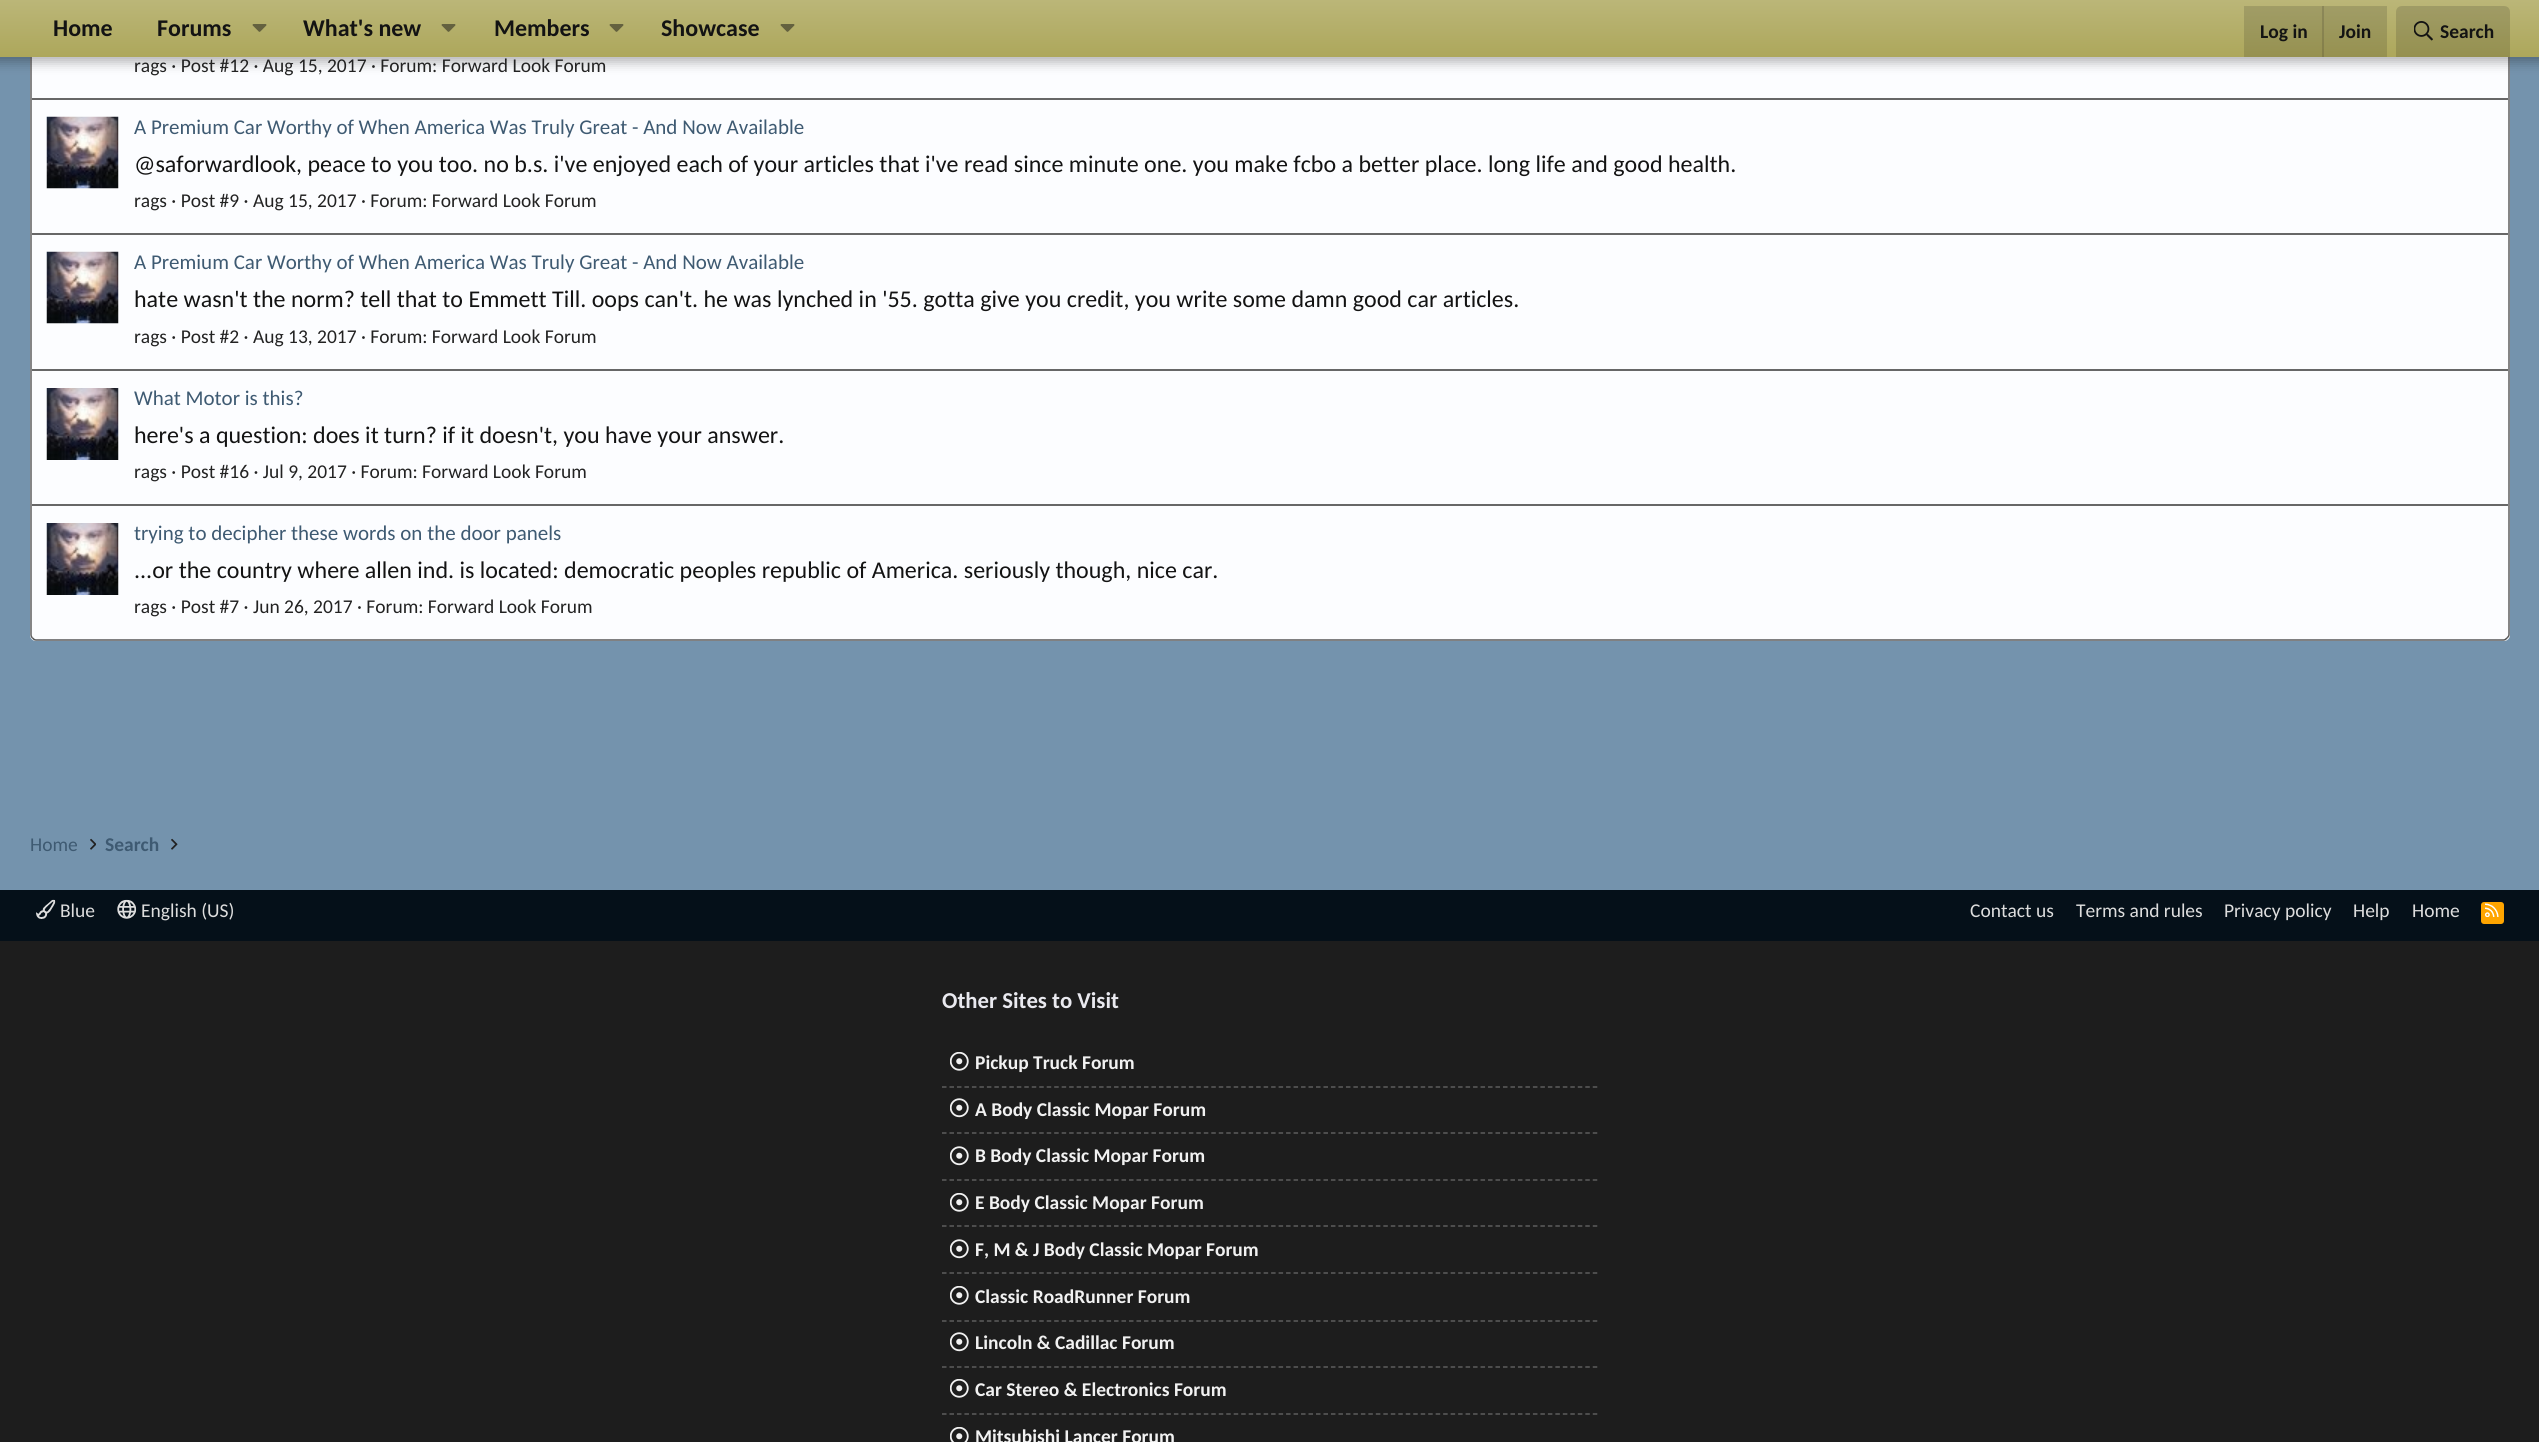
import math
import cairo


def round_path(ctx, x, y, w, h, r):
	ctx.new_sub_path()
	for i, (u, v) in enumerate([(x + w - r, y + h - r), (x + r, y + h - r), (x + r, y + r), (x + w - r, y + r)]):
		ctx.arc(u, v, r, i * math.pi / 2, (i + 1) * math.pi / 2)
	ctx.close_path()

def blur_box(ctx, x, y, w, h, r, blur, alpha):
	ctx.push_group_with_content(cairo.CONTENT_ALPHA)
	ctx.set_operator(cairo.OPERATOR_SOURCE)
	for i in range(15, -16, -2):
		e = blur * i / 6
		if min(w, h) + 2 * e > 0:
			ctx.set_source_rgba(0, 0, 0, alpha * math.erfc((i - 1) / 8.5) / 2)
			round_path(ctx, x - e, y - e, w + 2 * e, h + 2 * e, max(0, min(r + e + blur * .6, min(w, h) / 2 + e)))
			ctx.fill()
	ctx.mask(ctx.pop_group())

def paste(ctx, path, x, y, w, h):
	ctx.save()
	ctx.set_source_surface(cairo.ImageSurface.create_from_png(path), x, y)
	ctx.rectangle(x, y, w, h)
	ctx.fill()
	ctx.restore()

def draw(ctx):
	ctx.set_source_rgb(0.455, 0.576, 0.678)
	ctx.paint()
	ctx.set_source_rgb(0.988, 0.992, 1)
	round_path(ctx, 30, -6, 2480, 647, 6)
	ctx.fill()
	ctx.new_path()
	ctx.move_to(2507, -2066)
	ctx.curve_to(2508, -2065, 2509, -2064, 2509, -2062.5)
	ctx.line_to(2509, 634.5)
	ctx.curve_to(2509, 636, 2508, 637, 2507, 638)
	ctx.set_source_rgb(0.365, 0.365, 0.365)
	ctx.set_line_width(1.5)
	ctx.stroke()
	ctx.new_path()
	ctx.move_to(2507, 638)
	ctx.curve_to(2506, 639, 2505, 640, 2503.5, 640)
	ctx.line_to(36, 640)
	ctx.curve_to(34.5, 640, 33.5, 639, 32.5, 638)
	ctx.set_source_rgb(0.325, 0.325, 0.325)
	ctx.stroke()
	ctx.new_path()
	ctx.move_to(32.5, 638)
	ctx.curve_to(31.5, 637, 31, 636, 31, 634.5)
	ctx.line_to(31, -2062.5)
	ctx.curve_to(31, -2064, 31.5, -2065, 32.5, -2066)
	ctx.set_source_rgb(0.365, 0.365, 0.365)
	ctx.stroke()
	ctx.set_source_rgb(0, 0, 0)
	blur_box(ctx, -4, -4, 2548, 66, 0, 6, 0.3)
	gradient = cairo.LinearGradient(1270, 0, 1270, 57)
	gradient.add_color_stop_rgba(0, 0.733, 0.714, 0.471, 1)
	gradient.add_color_stop_rgba(1, 0.678, 0.655, 0.357, 1)
	ctx.set_source(gradient)
	ctx.rectangle(0, 0, 2539, 57)
	ctx.fill()
	gradient = cairo.LinearGradient(1270, 0, 1270, 57)
	gradient.add_color_stop_rgba(0, 0.635, 0.62, 0.412, 1)
	gradient.add_color_stop_rgba(1, 0.588, 0.569, 0.314, 1)
	ctx.set_source(gradient)
	ctx.rectangle(2244, 6, 143, 51)
	ctx.fill()
	gradient = cairo.LinearGradient(1270, 0, 1270, 57)
	gradient.add_color_stop_rgba(0, 0.553, 0.537, 0.361, 1)
	gradient.add_color_stop_rgba(1, 0.514, 0.494, 0.278, 1)
	ctx.set_source(gradient)
	ctx.rectangle(2322, 6, 2, 51)
	ctx.fill()
	ctx.select_font_face('Carlito', cairo.FONT_SLANT_NORMAL, cairo.FONT_WEIGHT_BOLD)
	ctx.set_font_size(24)
	ctx.set_source_rgb(0.078, 0.078, 0.078)
	ctx.move_to(53, 36)
	ctx.show_text('Home')
	ctx.move_to(157, 36)
	ctx.show_text('Forums')
	paste(ctx, 'media/1.png', 252, 24, 15, 8)
	ctx.move_to(303, 36)
	ctx.show_text('What\'s new')
	paste(ctx, 'media/1.png', 441, 24, 15, 8)
	ctx.move_to(494, 36)
	ctx.show_text('Members')
	paste(ctx, 'media/1.png', 609, 24, 15, 8)
	ctx.move_to(661, 36)
	ctx.show_text('Showcase')
	paste(ctx, 'media/1.png', 780, 24, 15, 8)
	ctx.set_font_size(19.5)
	ctx.move_to(2260, 38)
	ctx.show_text('Log in')
	ctx.move_to(2339, 38)
	ctx.show_text('Join')
	ctx.set_source_rgba(0.078, 0.078, 0.078, 0.15)
	ctx.new_path()
	ctx.move_to(2402, 6)
	ctx.line_to(2504, 6)
	ctx.curve_to(2507.5, 6, 2510, 8.5, 2510, 12)
	ctx.line_to(2510, 57)
	ctx.line_to(2396, 57)
	ctx.line_to(2396, 12)
	ctx.curve_to(2396, 8.5, 2398.5, 6, 2402, 6)
	ctx.close_path()
	ctx.fill()
	paste(ctx, 'media/2.png', 2414, 21, 19, 20)
	ctx.set_source_rgb(0.078, 0.078, 0.078)
	ctx.move_to(2440, 38)
	ctx.show_text('Search')
	ctx.select_font_face('Carlito')
	ctx.set_source_rgb(0.133, 0.133, 0.133)
	ctx.move_to(134, 72)
	ctx.show_text('rags · Post #12 · Aug 15, 2017 · Forum: Forward Look Forum')
	ctx.set_source_rgb(0.404, 0.404, 0.404)
	ctx.rectangle(32, 98, 2476, 2)
	ctx.fill()
	paste(ctx, 'media/3.png', 46, 116, 73, 73)
	ctx.set_font_size(21)
	ctx.set_source_rgb(0.243, 0.353, 0.447)
	ctx.move_to(134, 134)
	ctx.show_text('A Premium Car Worthy of When America Was Truly Great - And Now Available')
	ctx.set_font_size(24)
	ctx.set_source_rgb(0.078, 0.078, 0.078)
	ctx.move_to(134, 172)
	ctx.show_text('@saforwardlook, peace to you too. no b.s. i\'ve enjoyed each of your articles that i\'ve read since minute one. you make fcbo a better place. long life and good health.')
	ctx.set_font_size(19.5)
	ctx.set_source_rgb(0.133, 0.133, 0.133)
	ctx.move_to(134, 207)
	ctx.show_text('rags · Post #9 · Aug 15, 2017 · Forum: Forward Look Forum')
	ctx.set_source_rgb(0.404, 0.404, 0.404)
	ctx.rectangle(32, 233, 2476, 2)
	ctx.fill()
	paste(ctx, 'media/3.png', 46, 251, 73, 73)
	ctx.set_font_size(21)
	ctx.set_source_rgb(0.243, 0.353, 0.447)
	ctx.move_to(134, 269)
	ctx.show_text('A Premium Car Worthy of When America Was Truly Great - And Now Available')
	ctx.set_font_size(24)
	ctx.set_source_rgb(0.078, 0.078, 0.078)
	ctx.move_to(134, 307)
	ctx.show_text('hate wasn\'t the norm? tell that to Emmett Till. oops can\'t. he was lynched in \'55. gotta give you credit, you write some damn good car articles.')
	ctx.set_font_size(19.5)
	ctx.set_source_rgb(0.133, 0.133, 0.133)
	ctx.move_to(134, 343)
	ctx.show_text('rags · Post #2 · Aug 13, 2017 · Forum: Forward Look Forum')
	ctx.set_source_rgb(0.404, 0.404, 0.404)
	ctx.rectangle(32, 369, 2476, 2)
	ctx.fill()
	paste(ctx, 'media/4.png', 46, 388, 73, 72)
	ctx.set_font_size(21)
	ctx.set_source_rgb(0.243, 0.353, 0.447)
	ctx.move_to(134, 405)
	ctx.show_text('What Motor is this?')
	ctx.set_font_size(24)
	ctx.set_source_rgb(0.078, 0.078, 0.078)
	ctx.move_to(134, 443)
	ctx.show_text('here\'s a question: does it turn? if it doesn\'t, you have your answer.')
	ctx.set_font_size(19.5)
	ctx.set_source_rgb(0.133, 0.133, 0.133)
	ctx.move_to(134, 478)
	ctx.show_text('rags · Post #16 · Jul 9, 2017 · Forum: Forward Look Forum')
	ctx.set_source_rgb(0.404, 0.404, 0.404)
	ctx.rectangle(32, 504, 2476, 2)
	ctx.fill()
	paste(ctx, 'media/4.png', 46, 523, 73, 72)
	ctx.set_font_size(21)
	ctx.set_source_rgb(0.243, 0.353, 0.447)
	ctx.move_to(134, 540)
	ctx.show_text('trying to decipher these words on the door panels')
	ctx.set_font_size(24)
	ctx.set_source_rgb(0.078, 0.078, 0.078)
	ctx.move_to(134, 578)
	ctx.show_text('...or the country where allen ind. is located: democratic peoples republic of America. seriously though, nice car.')
	ctx.set_font_size(19.5)
	ctx.set_source_rgb(0.133, 0.133, 0.133)
	ctx.move_to(134, 613)
	ctx.show_text('rags · Post #7 · Jun 26, 2017 · Forum: Forward Look Forum')
	ctx.set_source_rgb(0.243, 0.353, 0.447)
	ctx.move_to(30, 851)
	ctx.show_text('Home')
	paste(ctx, 'media/5.png', 90, 838, 6, 12)
	ctx.select_font_face('Carlito', cairo.FONT_SLANT_NORMAL, cairo.FONT_WEIGHT_BOLD)
	ctx.move_to(105, 851)
	ctx.show_text('Search')
	paste(ctx, 'media/6.png', 171, 838, 7, 12)
	ctx.set_source_rgb(0.02, 0.063, 0.098)
	ctx.rectangle(0, 890, 2539, 51)
	ctx.fill()
	paste(ctx, 'media/7.png', 36, 899, 20, 20)
	ctx.select_font_face('Carlito')
	ctx.set_source_rgb(0.867, 0.867, 0.867)
	ctx.move_to(60, 917)
	ctx.show_text('Blue')
	paste(ctx, 'media/8.png', 117, 899, 20, 20)
	for x, y, s in [
		(141, 917, 'English (US)'),
		(1970, 917, 'Contact us'),
		(2076, 917, 'Terms and rules'),
		(2224, 917, 'Privacy policy'),
		(2353, 917, 'Help'),
		(2412, 917, 'Home'),
	]:
		ctx.move_to(x, y)
		ctx.show_text(s)
	ctx.set_source_rgb(1, 0.647, 0)
	round_path(ctx, 2481, 902, 23, 22, 3)
	ctx.fill()
	paste(ctx, 'media/9.png', 2485, 903, 14, 14)
	ctx.set_source_rgb(0.114, 0.114, 0.114)
	ctx.rectangle(0, 941, 2539, 501)
	ctx.fill()
	ctx.select_font_face('Carlito', cairo.FONT_SLANT_NORMAL, cairo.FONT_WEIGHT_BOLD)
	ctx.set_font_size(22.75)
	ctx.set_source_rgb(0.914, 0.914, 0.937)
	ctx.move_to(942, 1008)
	ctx.show_text('Other Sites to Visit')
	ctx.new_path()
	ctx.move_to(942, 1087)
	ctx.line_to(1597.5, 1087)
	ctx.set_source_rgb(0.365, 0.365, 0.365)
	ctx.set_dash([4.5, 2.98])
	ctx.stroke()
	paste(ctx, 'media/10.png', 950, 1052, 19, 19)
	ctx.set_font_size(19.5)
	ctx.set_source_rgb(0.945, 0.945, 0.945)
	ctx.move_to(975, 1069)
	ctx.show_text('Pickup Truck Forum')
	ctx.new_path()
	ctx.move_to(942, 1133)
	ctx.line_to(1597.5, 1133)
	ctx.set_source_rgb(0.365, 0.365, 0.365)
	ctx.stroke()
	paste(ctx, 'media/11.png', 950, 1098, 19, 20)
	ctx.set_source_rgb(0.945, 0.945, 0.945)
	ctx.move_to(975, 1116)
	ctx.show_text('A Body Classic Mopar Forum')
	ctx.new_path()
	ctx.move_to(942, 1180)
	ctx.line_to(1597.5, 1180)
	ctx.set_source_rgb(0.365, 0.365, 0.365)
	ctx.stroke()
	paste(ctx, 'media/11.png', 950, 1146, 19, 20)
	ctx.set_source_rgb(0.945, 0.945, 0.945)
	ctx.move_to(975, 1162)
	ctx.show_text('B Body Classic Mopar Forum')
	ctx.new_path()
	ctx.move_to(942, 1226)
	ctx.line_to(1597.5, 1226)
	ctx.set_source_rgb(0.365, 0.365, 0.365)
	ctx.stroke()
	paste(ctx, 'media/10.png', 950, 1193, 19, 19)
	ctx.set_source_rgb(0.945, 0.945, 0.945)
	ctx.move_to(975, 1209)
	ctx.show_text('E Body Classic Mopar Forum')
	ctx.new_path()
	ctx.move_to(942, 1273)
	ctx.line_to(1597.5, 1273)
	ctx.set_source_rgb(0.365, 0.365, 0.365)
	ctx.stroke()
	paste(ctx, 'media/11.png', 950, 1239, 19, 20)
	ctx.set_source_rgb(0.945, 0.945, 0.945)
	ctx.move_to(975, 1256)
	ctx.show_text('F, M & J Body Classic Mopar Forum')
	ctx.new_path()
	ctx.move_to(942, 1321)
	ctx.line_to(1597.5, 1321)
	ctx.set_source_rgb(0.365, 0.365, 0.365)
	ctx.stroke()
	paste(ctx, 'media/10.png', 950, 1286, 19, 19)
	ctx.set_source_rgb(0.945, 0.945, 0.945)
	ctx.move_to(975, 1303)
	ctx.show_text('Classic RoadRunner Forum')
	ctx.new_path()
	ctx.move_to(942, 1367)
	ctx.line_to(1597.5, 1367)
	ctx.set_source_rgb(0.365, 0.365, 0.365)
	ctx.stroke()
	paste(ctx, 'media/11.png', 950, 1332, 19, 20)
	ctx.set_source_rgb(0.945, 0.945, 0.945)
	ctx.move_to(975, 1349)
	ctx.show_text('Lincoln & Cadillac Forum')
	ctx.new_path()
	ctx.move_to(942, 1414)
	ctx.line_to(1597.5, 1414)
	ctx.set_source_rgb(0.365, 0.365, 0.365)
	ctx.stroke()
	paste(ctx, 'media/10.png', 950, 1379, 19, 19)
	ctx.set_source_rgb(0.945, 0.945, 0.945)
	ctx.move_to(975, 1396)
	ctx.show_text('Car Stereo & Electronics Forum')
	paste(ctx, 'media/12.png', 950, 1427, 19, 15)
	ctx.move_to(975, 1443)
	ctx.show_text('Mitsubishi Lancer Forum')


surface = cairo.ImageSurface(cairo.FORMAT_RGB24, 2539, 1442)
ctx = cairo.Context(surface)
options = cairo.FontOptions()
options.set_hint_metrics(cairo.HINT_METRICS_OFF)
options.set_hint_style(cairo.HINT_STYLE_NONE)
ctx.set_font_options(options)
ctx.set_miter_limit(4)
draw(ctx)
surface.write_to_png('image.png')
